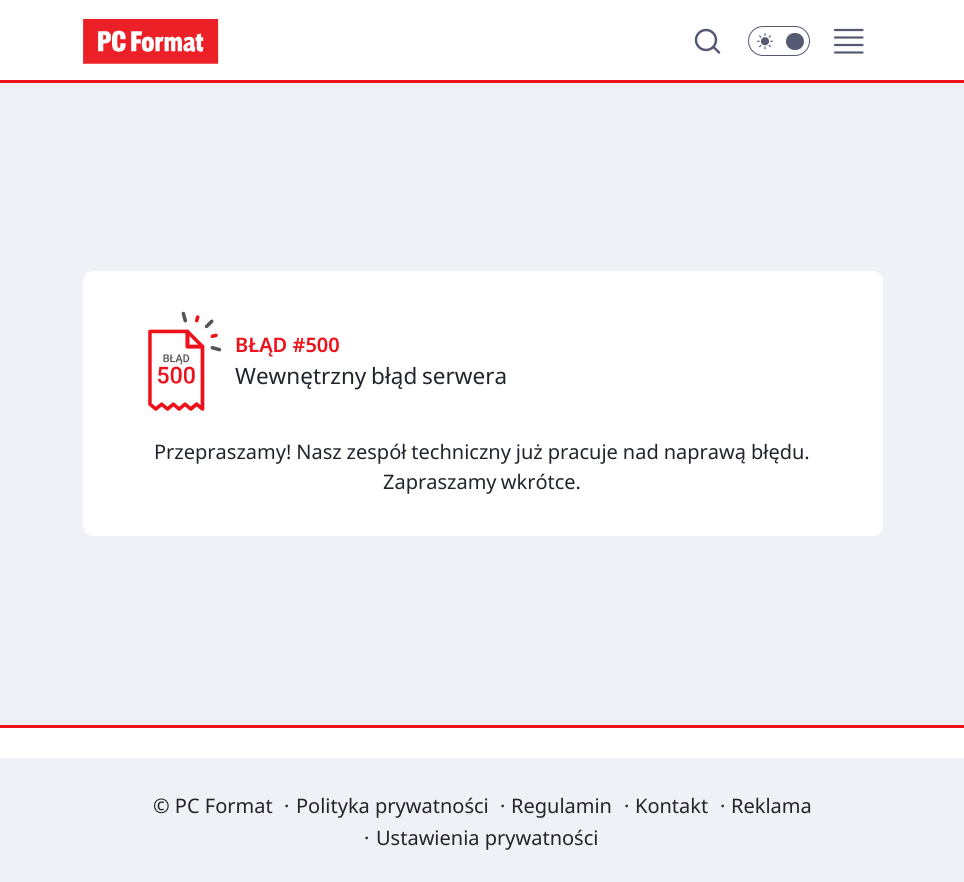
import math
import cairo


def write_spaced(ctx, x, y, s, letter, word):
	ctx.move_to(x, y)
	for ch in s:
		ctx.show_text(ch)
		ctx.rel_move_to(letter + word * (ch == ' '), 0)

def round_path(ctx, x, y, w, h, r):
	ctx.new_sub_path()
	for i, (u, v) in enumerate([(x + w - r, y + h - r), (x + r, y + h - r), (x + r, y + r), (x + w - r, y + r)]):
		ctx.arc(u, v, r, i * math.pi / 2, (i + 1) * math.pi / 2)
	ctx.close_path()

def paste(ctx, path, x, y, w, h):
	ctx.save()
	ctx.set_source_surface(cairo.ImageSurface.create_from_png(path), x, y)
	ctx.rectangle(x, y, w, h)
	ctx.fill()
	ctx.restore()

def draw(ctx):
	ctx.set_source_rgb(0.937, 0.945, 0.961)
	ctx.paint()
	ctx.set_source_rgb(1, 1, 1)
	ctx.rectangle(0, 0, 964, 80)
	ctx.fill()
	paste(ctx, 'media/1.png', 83, 18, 136, 46)
	ctx.arc(706, 40, 10, 0, 2 * math.pi)
	ctx.set_source_rgb(0.333, 0.353, 0.447)
	ctx.set_line_width(2.5)
	ctx.stroke()
	ctx.new_path()
	ctx.move_to(719, 52.5)
	ctx.line_to(713.5, 47)
	ctx.set_line_cap(cairo.LINE_CAP_ROUND)
	ctx.set_line_join(cairo.LINE_JOIN_ROUND)
	ctx.stroke()
	round_path(ctx, 748.5, 26.5, 61, 29, 14.5)
	ctx.set_line_width(1)
	ctx.set_line_cap(cairo.LINE_CAP_BUTT)
	ctx.set_line_join(cairo.LINE_JOIN_MITER)
	ctx.stroke()
	paste(ctx, 'media/2.png', 756, 33, 18, 17)
	round_path(ctx, 786, 33, 18, 17, 8.5)
	ctx.fill()
	ctx.new_path()
	ctx.move_to(835, 45)
	ctx.line_to(862.5, 45)
	ctx.move_to(835, 37.5)
	ctx.line_to(862.5, 37.5)
	ctx.move_to(835, 30)
	ctx.line_to(862.5, 30)
	ctx.move_to(835, 52.5)
	ctx.line_to(862.5, 52.5)
	ctx.set_line_width(2.2)
	ctx.set_line_cap(cairo.LINE_CAP_ROUND)
	ctx.set_line_join(cairo.LINE_JOIN_ROUND)
	ctx.stroke()
	ctx.set_source_rgb(0.925, 0.067, 0.102)
	ctx.rectangle(0, 80, 964, 3)
	ctx.fill()
	ctx.set_source_rgb(1, 1, 1)
	round_path(ctx, 83, 271, 800, 265, 10)
	ctx.fill()
	paste(ctx, 'media/3.png', 148, 311, 74, 100)
	ctx.select_font_face('Noto Sans SemiBold')
	ctx.set_font_size(20)
	ctx.set_source_rgb(0.925, 0.067, 0.102)
	ctx.move_to(235, 352)
	ctx.show_text('BŁĄD #500')
	ctx.select_font_face('Noto Sans')
	ctx.set_font_size(22.5)
	ctx.set_source_rgb(0.133, 0.141, 0.176)
	write_spaced(ctx, 235, 384, 'Wewnętrzny błąd serwera', 0, -1)
	ctx.set_font_size(20)
	write_spaced(ctx, 154, 459, 'Przepraszamy! Nasz zespół techniczny już pracuje nad naprawą błędu.', 0, -0.25)
	write_spaced(ctx, 383, 489, 'Zapraszamy wkrótce.', 0, -1)
	ctx.set_source_rgb(1, 1, 1)
	ctx.rectangle(0, 728, 964, 30)
	ctx.fill()
	ctx.set_source_rgb(0.925, 0.067, 0.102)
	ctx.rectangle(0, 725, 964, 3)
	ctx.fill()
	ctx.set_source_rgb(0.133, 0.141, 0.176)
	for x, y, s in [
		(153, 813, '© PC Format'),
		(284, 813, '·'),
		(296, 813, 'Polityka prywatności'),
		(500, 813, '·'),
		(511, 813, 'Regulamin'),
		(624, 813, '·'),
		(635, 813, 'Kontakt'),
		(720, 813, '·'),
		(731, 813, 'Reklama'),
		(364, 845, '·'),
		(376, 845, 'Ustawienia prywatności'),
	]:
		ctx.move_to(x, y)
		ctx.show_text(s)


surface = cairo.ImageSurface(cairo.FORMAT_RGB24, 964, 882)
ctx = cairo.Context(surface)
options = cairo.FontOptions()
options.set_hint_metrics(cairo.HINT_METRICS_OFF)
options.set_hint_style(cairo.HINT_STYLE_NONE)
ctx.set_font_options(options)
ctx.set_miter_limit(4)
draw(ctx)
surface.write_to_png('image.png')
